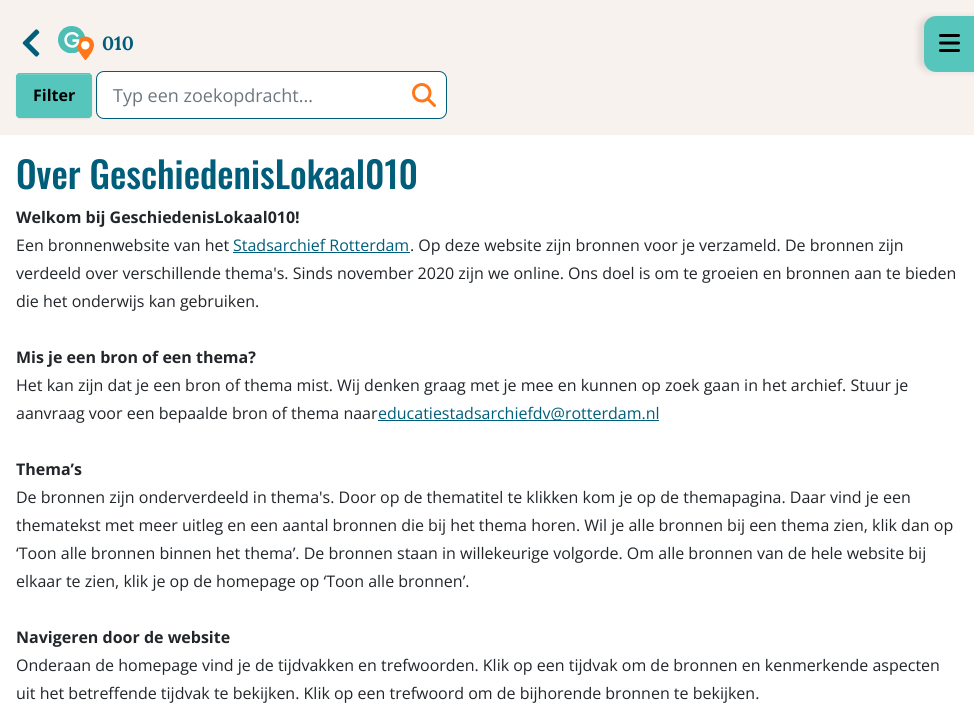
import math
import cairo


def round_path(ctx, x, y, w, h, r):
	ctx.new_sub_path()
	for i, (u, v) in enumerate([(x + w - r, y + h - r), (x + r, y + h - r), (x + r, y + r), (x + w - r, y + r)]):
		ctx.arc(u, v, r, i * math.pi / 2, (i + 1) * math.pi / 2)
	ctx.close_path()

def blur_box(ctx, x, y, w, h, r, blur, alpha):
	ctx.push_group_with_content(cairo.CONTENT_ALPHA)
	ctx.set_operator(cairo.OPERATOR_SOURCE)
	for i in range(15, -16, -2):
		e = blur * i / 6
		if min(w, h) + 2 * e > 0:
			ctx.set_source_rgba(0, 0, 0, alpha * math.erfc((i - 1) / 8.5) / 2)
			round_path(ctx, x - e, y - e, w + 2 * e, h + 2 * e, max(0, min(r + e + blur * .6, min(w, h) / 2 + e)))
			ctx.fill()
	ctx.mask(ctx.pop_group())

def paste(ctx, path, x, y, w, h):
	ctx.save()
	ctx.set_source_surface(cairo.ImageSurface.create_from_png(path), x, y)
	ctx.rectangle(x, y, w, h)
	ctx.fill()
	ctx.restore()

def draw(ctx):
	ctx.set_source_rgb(1, 1, 1)
	ctx.paint()
	ctx.set_source_rgb(0.969, 0.949, 0.937)
	ctx.rectangle(0, 0, 974, 135)
	ctx.fill()
	paste(ctx, 'media/1.png', 22, 29, 18, 28)
	paste(ctx, 'media/2.png', 58, 26, 36, 35)
	ctx.select_font_face('Lora', cairo.FONT_SLANT_NORMAL, cairo.FONT_WEIGHT_BOLD)
	ctx.set_font_size(19)
	ctx.set_source_rgb(0, 0.369, 0.478)
	ctx.move_to(102, 50)
	ctx.show_text('010')
	ctx.set_source_rgb(0, 0, 0)
	blur_box(ctx, 16, 74, 76, 45, 4, 0.5, 0.07)
	ctx.set_source_rgb(0.337, 0.773, 0.733)
	round_path(ctx, 16, 73, 76, 45, 4)
	ctx.fill()
	ctx.set_source_rgb(0.435, 0.808, 0.773)
	ctx.new_path()
	ctx.move_to(20, 75)
	ctx.line_to(88, 75)
	ctx.curve_to(90, 75, 91, 76, 91, 78)
	ctx.curve_to(91, 71, 81, 74, 77, 74)
	ctx.line_to(31, 74)
	ctx.curve_to(27, 74, 17, 71, 17, 78)
	ctx.curve_to(17, 76, 18, 75, 20, 75)
	ctx.close_path()
	ctx.fill()
	round_path(ctx, 16.5, 73.5, 75, 44, 3.5)
	ctx.set_source_rgb(0.337, 0.773, 0.733)
	ctx.set_line_width(1)
	ctx.stroke()
	ctx.select_font_face('Open Sans', cairo.FONT_SLANT_NORMAL, cairo.FONT_WEIGHT_BOLD)
	ctx.set_font_size(16)
	ctx.set_source_rgb(0, 0, 0)
	ctx.move_to(33, 101)
	ctx.show_text('Filter')
	ctx.set_source_rgb(1, 1, 1)
	round_path(ctx, 96.5, 71.5, 350, 47, 7.5)
	ctx.fill_preserve()
	ctx.set_source_rgb(0, 0.369, 0.478)
	ctx.stroke()
	ctx.select_font_face('Open Sans')
	ctx.set_font_size(18)
	ctx.set_source_rgb(0.427, 0.459, 0.494)
	ctx.move_to(113, 102)
	ctx.show_text('Typ een zoekopdracht...')
	paste(ctx, 'media/3.png', 412, 83, 24, 24)
	ctx.set_source_rgb(0, 0, 0)
	blur_box(ctx, 918, 16, 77, 56, 12, 3, 0.1)
	ctx.set_source_rgb(0.337, 0.773, 0.733)
	ctx.new_path()
	ctx.move_to(936, 16)
	ctx.line_to(974, 16)
	ctx.line_to(974, 72)
	ctx.line_to(936, 72)
	ctx.curve_to(929.5, 72, 924, 66.5, 924, 60)
	ctx.line_to(924, 28)
	ctx.curve_to(924, 21.5, 929.5, 16, 936, 16)
	ctx.close_path()
	ctx.fill()
	paste(ctx, 'media/4.png', 939, 34, 21, 18)
	ctx.select_font_face('Oswald Medium')
	ctx.set_font_size(36.6)
	ctx.set_source_rgb(0, 0.369, 0.478)
	ctx.move_to(16, 189)
	ctx.show_text('Over GeschiedenisLokaal010')
	ctx.select_font_face('Open Sans', cairo.FONT_SLANT_NORMAL, cairo.FONT_WEIGHT_BOLD)
	ctx.set_font_size(16)
	ctx.set_source_rgb(0.133, 0.149, 0.165)
	ctx.move_to(16, 223)
	ctx.show_text('Welkom bij GeschiedenisLokaal010!')
	ctx.select_font_face('Open Sans')
	ctx.move_to(16, 251)
	ctx.show_text('Een bronnenwebsite van het')
	ctx.set_source_rgb(0, 0.369, 0.478)
	ctx.move_to(233, 251)
	ctx.show_text('Stadsarchief Rotterdam')
	ctx.rectangle(233, 252, 177, 1)
	ctx.fill()
	ctx.set_source_rgb(0.133, 0.149, 0.165)
	for x, y, s in [
		(410, 251, '. Op deze website zijn bronnen voor je verzameld. De bronnen zijn'),
		(16, 279, 'verdeeld over verschillende thema\'s. Sinds november 2020 zijn we online. Ons doel is om te groeien en bronnen aan te bieden'),
		(16, 307, 'die het onderwijs kan gebruiken.'),
	]:
		ctx.move_to(x, y)
		ctx.show_text(s)
	ctx.select_font_face('Open Sans', cairo.FONT_SLANT_NORMAL, cairo.FONT_WEIGHT_BOLD)
	ctx.move_to(16, 363)
	ctx.show_text('Mis je een bron of een thema?')
	ctx.select_font_face('Open Sans')
	ctx.move_to(16, 391)
	ctx.show_text('Het kan zijn dat je een bron of thema mist. Wij denken graag met je mee en kunnen op zoek gaan in het archief. Stuur je')
	ctx.move_to(16, 419)
	ctx.show_text('aanvraag voor een bepaalde bron of thema naar')
	ctx.set_source_rgb(0, 0.369, 0.478)
	ctx.rectangle(378, 420, 281, 1)
	ctx.fill()
	ctx.move_to(378, 419)
	ctx.show_text('educatiestadsarchiefdv@rotterdam.nl')
	ctx.select_font_face('Open Sans', cairo.FONT_SLANT_NORMAL, cairo.FONT_WEIGHT_BOLD)
	ctx.set_source_rgb(0.133, 0.149, 0.165)
	ctx.move_to(16, 475)
	ctx.show_text('Thema’s')
	ctx.select_font_face('Open Sans')
	for x, y, s in [
		(16, 503, 'De bronnen zijn onderverdeeld in thema\'s. Door op de thematitel te klikken kom je op de themapagina. Daar vind je een'),
		(16, 531, 'thematekst met meer uitleg en een aantal bronnen die bij het thema horen. Wil je alle bronnen bij een thema zien, klik dan op'),
		(16, 559, '‘Toon alle bronnen binnen het thema’. De bronnen staan in willekeurige volgorde. Om alle bronnen van de hele website bij'),
		(16, 587, 'elkaar te zien, klik je op de homepage op ‘Toon alle bronnen’.'),
	]:
		ctx.move_to(x, y)
		ctx.show_text(s)
	ctx.select_font_face('Open Sans', cairo.FONT_SLANT_NORMAL, cairo.FONT_WEIGHT_BOLD)
	ctx.move_to(16, 643)
	ctx.show_text('Navigeren door de website')
	ctx.select_font_face('Open Sans')
	ctx.move_to(16, 671)
	ctx.show_text('Onderaan de homepage vind je de tijdvakken en trefwoorden. Klik op een tijdvak om de bronnen en kenmerkende aspecten')
	ctx.move_to(16, 699)
	ctx.show_text('uit het betreffende tijdvak te bekijken. Klik op een trefwoord om de bijhorende bronnen te bekijken.')


surface = cairo.ImageSurface(cairo.FORMAT_RGB24, 974, 711)
ctx = cairo.Context(surface)
options = cairo.FontOptions()
options.set_hint_metrics(cairo.HINT_METRICS_OFF)
options.set_hint_style(cairo.HINT_STYLE_NONE)
ctx.set_font_options(options)
ctx.set_miter_limit(4)
draw(ctx)
surface.write_to_png('image.png')
